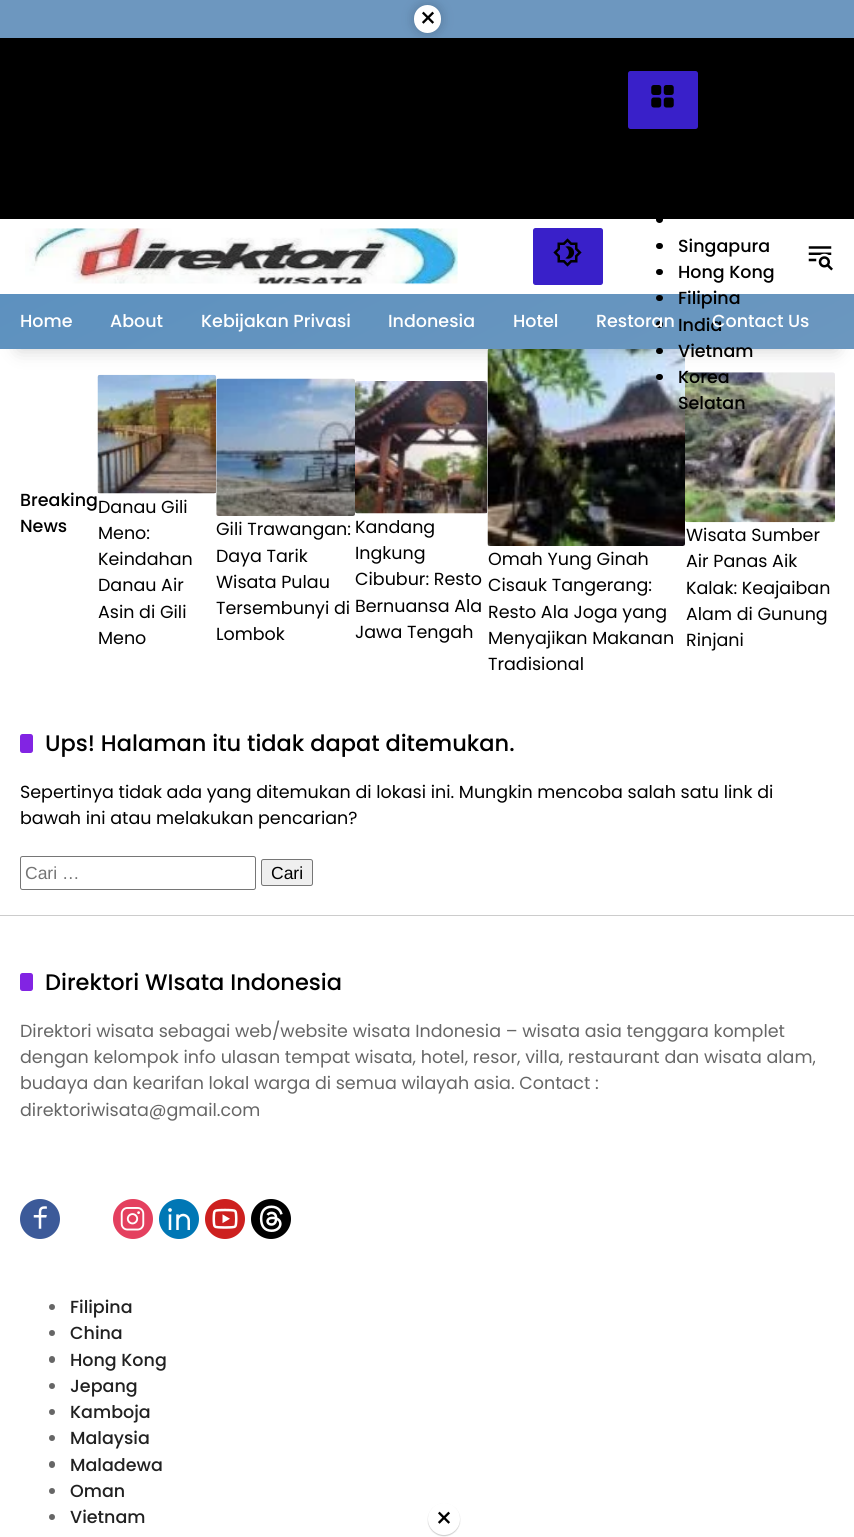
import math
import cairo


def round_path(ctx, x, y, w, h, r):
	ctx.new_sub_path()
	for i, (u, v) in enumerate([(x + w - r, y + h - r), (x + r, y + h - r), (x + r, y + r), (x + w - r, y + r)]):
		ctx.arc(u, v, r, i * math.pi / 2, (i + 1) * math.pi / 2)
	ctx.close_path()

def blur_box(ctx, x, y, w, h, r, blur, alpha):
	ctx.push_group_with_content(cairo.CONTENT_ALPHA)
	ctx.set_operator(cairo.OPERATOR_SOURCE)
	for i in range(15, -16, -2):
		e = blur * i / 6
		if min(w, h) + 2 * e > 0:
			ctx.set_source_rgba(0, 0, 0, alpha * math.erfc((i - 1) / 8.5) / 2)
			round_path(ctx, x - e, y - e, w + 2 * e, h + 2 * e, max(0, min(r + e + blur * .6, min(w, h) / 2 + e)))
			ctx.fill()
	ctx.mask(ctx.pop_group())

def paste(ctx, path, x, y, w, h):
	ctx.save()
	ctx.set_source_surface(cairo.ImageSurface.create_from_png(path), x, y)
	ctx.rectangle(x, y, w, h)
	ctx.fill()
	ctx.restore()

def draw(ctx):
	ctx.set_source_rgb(0, 0, 0)
	ctx.paint()
	ctx.set_source_rgb(0.427, 0.592, 0.749)
	ctx.rectangle(0, 0, 854, 38)
	ctx.fill()
	ctx.set_source_rgb(0, 0, 0)
	blur_box(ctx, 414, 5, 27, 28, 13.5, 6, 0.2)
	ctx.set_source_rgb(1, 1, 1)
	round_path(ctx, 414, 5, 27, 28, 13.5)
	ctx.fill()
	ctx.select_font_face('Poppins')
	ctx.set_font_size(28)
	ctx.set_source_rgb(0, 0, 0)
	ctx.move_to(419, 28)
	ctx.show_text('×')
	ctx.set_source_rgb(1, 1, 1)
	ctx.rectangle(0, 349, 854, 1188)
	ctx.fill()
	ctx.rectangle(0, 219, 854, 75)
	ctx.fill()
	paste(ctx, 'media/1.png', 25, 228, 433, 57)
	ctx.set_source_rgb(0.224, 0.125, 0.788)
	round_path(ctx, 533, 228, 70, 57, 2.5)
	ctx.fill()
	paste(ctx, 'media/2.png', 553, 238, 29, 29)
	round_path(ctx, 628, 71, 70, 58, 2.5)
	ctx.fill()
	paste(ctx, 'media/3.png', 651, 85, 23, 23)
	ctx.set_source_rgb(0, 0, 0)
	ctx.arc(659.5, 219.5, 3.5, 0, 2 * math.pi)
	ctx.fill()
	round_path(ctx, 656, 243, 7, 6, 3)
	ctx.fill()
	ctx.select_font_face('Poppins Medium')
	ctx.set_font_size(17.5)
	ctx.move_to(678, 252)
	ctx.show_text('Singapura')
	round_path(ctx, 656, 269, 7, 6, 3)
	ctx.fill()
	ctx.move_to(678, 278)
	ctx.show_text('Hong Kong')
	paste(ctx, 'media/5.png', 97, 374, 120, 120)
	paste(ctx, 'media/6.png', 216, 378, 139, 138)
	paste(ctx, 'media/7.png', 355, 381, 133, 133)
	paste(ctx, 'media/8.png', 487, 349, 198, 197)
	paste(ctx, 'media/9.png', 685, 372, 150, 151)
	ctx.set_source_rgb(0, 0, 0)
	blur_box(ctx, 19, 331, 817, 18, 0, 9.5, 0.2)
	gradient = cairo.LinearGradient(328, 126, 527, 516)
	gradient.add_color_stop_rgba(0, 0.365, 0.569, 0.749, 1)
	gradient.add_color_stop_rgba(1, 0.42, 0.592, 0.749, 1)
	ctx.set_source(gradient)
	ctx.rectangle(0, 294, 854, 55)
	ctx.fill()
	ctx.set_source_rgb(0, 0, 0)
	round_path(ctx, 656, 295, 7, 6, 3)
	ctx.fill()
	ctx.move_to(678, 304)
	ctx.show_text('Filipina')
	ctx.new_path()
	ctx.arc(659.5, 324.5, 3.5, 0, 2 * math.pi)
	ctx.fill()
	ctx.move_to(678, 331)
	ctx.show_text('India')
	round_path(ctx, 656, 348, 7, 6, 3)
	ctx.fill()
	ctx.move_to(678, 357)
	ctx.show_text('Vietnam')
	round_path(ctx, 656, 374, 7, 6, 3)
	ctx.fill()
	ctx.move_to(678, 383)
	ctx.show_text('Korea')
	ctx.move_to(678, 409)
	ctx.show_text('Selatan')
	paste(ctx, 'media/4.png', 808, 246, 25, 25)
	ctx.set_source_rgb(1, 1, 1)
	for x, y, s in [
		(20, 327, 'Home'),
		(110, 327, 'About'),
		(201, 327, 'Kebijakan Privasi'),
		(388, 327, 'Indonesia'),
		(513, 327, 'Hotel'),
		(596, 327, 'Restoran'),
		(712, 327, 'Contact Us'),
	]:
		ctx.move_to(x, y)
		ctx.show_text(s)
	ctx.set_source_rgb(0, 0, 0)
	ctx.move_to(20, 506)
	ctx.show_text('Breaking')
	ctx.move_to(20, 532)
	ctx.show_text('News')
	ctx.select_font_face('Poppins')
	for x, y, s in [
		(98, 513, 'Danau Gili'),
		(98, 539, 'Meno:'),
		(98, 565, 'Keindahan'),
		(98, 591, 'Danau Air'),
		(98, 618, 'Asin di Gili'),
		(98, 644, 'Meno'),
		(216, 535, 'Gili Trawangan:'),
		(216, 562, 'Daya Tarik'),
		(216, 588, 'Wisata Pulau'),
		(216, 614, 'Tersembunyi di'),
		(216, 640, 'Lombok'),
		(355, 533, 'Kandang'),
		(355, 559, 'Ingkung'),
		(355, 585, 'Cibubur: Resto'),
		(355, 612, 'Bernuansa Ala'),
		(355, 638, 'Jawa Tengah'),
		(488, 565, 'Omah Yung Ginah'),
		(488, 591, 'Cisauk Tangerang:'),
		(488, 618, 'Resto Ala Joga yang'),
		(488, 644, 'Menyajikan Makanan'),
		(488, 670, 'Tradisional'),
		(686, 541, 'Wisata Sumber'),
		(686, 567, 'Air Panas Aik'),
		(686, 594, 'Kalak: Keajaiban'),
		(686, 620, 'Alam di Gunung'),
		(686, 646, 'Rinjani'),
	]:
		ctx.move_to(x, y)
		ctx.show_text(s)
	ctx.set_source_rgb(0.51, 0.141, 0.89)
	round_path(ctx, 20, 734, 13, 19, 2.5)
	ctx.fill()
	ctx.select_font_face('Poppins Medium')
	ctx.set_font_size(22.5)
	ctx.set_source_rgb(0, 0, 0)
	ctx.move_to(45, 751)
	ctx.show_text('Ups! Halaman itu tidak dapat ditemukan.')
	ctx.select_font_face('Poppins')
	ctx.set_font_size(17.5)
	ctx.move_to(20, 798)
	ctx.show_text('Sepertinya tidak ada yang ditemukan di lokasi ini. Mungkin mencoba salah satu link di')
	ctx.move_to(20, 824)
	ctx.show_text('bawah ini atau melakukan pencarian?')
	round_path(ctx, 20.5, 856.5, 235, 33, 2)
	ctx.set_source_rgb(0.463, 0.463, 0.463)
	ctx.set_line_width(1)
	ctx.stroke()
	ctx.select_font_face('Liberation Sans')
	ctx.set_source_rgb(0.459, 0.459, 0.459)
	ctx.move_to(25, 879)
	ctx.show_text('Cari …')
	ctx.set_source_rgb(0.937, 0.937, 0.937)
	round_path(ctx, 261.5, 859.5, 51, 26, 2)
	ctx.fill_preserve()
	ctx.set_source_rgb(0.463, 0.463, 0.463)
	ctx.stroke()
	ctx.set_source_rgb(0, 0, 0)
	ctx.move_to(271, 879)
	ctx.show_text('Cari')
	ctx.set_source_rgb(0.8, 0.8, 0.8)
	ctx.rectangle(0, 915, 854, 1)
	ctx.fill()
	ctx.set_source_rgb(0.51, 0.141, 0.89)
	round_path(ctx, 20, 973, 13, 18, 2.5)
	ctx.fill()
	ctx.select_font_face('Poppins Medium')
	ctx.set_font_size(22.5)
	ctx.set_source_rgb(0, 0, 0)
	ctx.move_to(45, 990)
	ctx.show_text('Direktori WIsata Indonesia')
	ctx.select_font_face('Poppins')
	ctx.set_font_size(17.5)
	ctx.set_source_rgb(0.4, 0.4, 0.4)
	for x, y, s in [
		(20, 1037, 'Direktori wisata sebagai web/website wisata Indonesia – wisata asia tenggara komplet'),
		(20, 1063, 'dengan kelompok info ulasan tempat wisata, hotel, resor, villa, restaurant dan wisata alam,'),
		(20, 1089, 'budaya dan kearifan lokal warga di semua wilayah asia. Contact :'),
		(20, 1116, 'direktoriwisata@gmail.com'),
	]:
		ctx.move_to(x, y)
		ctx.show_text(s)
	ctx.set_source_rgb(0.235, 0.353, 0.6)
	ctx.new_path()
	ctx.arc(40, 1219, 20, 0, 2 * math.pi)
	ctx.fill()
	paste(ctx, 'media/10.png', 33, 1206, 14, 23)
	ctx.set_source_rgb(0.894, 0.251, 0.373)
	ctx.arc(133, 1219, 20, 0, 2 * math.pi)
	ctx.fill()
	paste(ctx, 'media/11.png', 120, 1207, 25, 24)
	ctx.set_source_rgb(0, 0.467, 0.71)
	ctx.arc(179, 1219, 20, 0, 2 * math.pi)
	ctx.fill()
	paste(ctx, 'media/12.png', 168, 1208, 22, 22)
	ctx.set_source_rgb(0.804, 0.125, 0.122)
	ctx.arc(225, 1219, 20, 0, 2 * math.pi)
	ctx.fill()
	paste(ctx, 'media/13.png', 212, 1208, 26, 21)
	ctx.set_source_rgb(0, 0, 0)
	ctx.arc(271, 1219, 20, 0, 2 * math.pi)
	ctx.fill()
	paste(ctx, 'media/14.png', 259, 1205, 24, 27)
	ctx.set_source_rgb(0.4, 0.4, 0.4)
	ctx.arc(52, 1307, 3, 0, 2 * math.pi)
	ctx.fill()
	ctx.select_font_face('Poppins Medium')
	ctx.set_source_rgb(0.129, 0.129, 0.129)
	ctx.move_to(70, 1313)
	ctx.show_text('Filipina')
	ctx.set_source_rgb(0.4, 0.4, 0.4)
	ctx.new_path()
	ctx.arc(52, 1333, 3, 0, 2 * math.pi)
	ctx.fill()
	ctx.set_source_rgb(0.129, 0.129, 0.129)
	ctx.move_to(70, 1339)
	ctx.show_text('China')
	ctx.set_source_rgb(0.4, 0.4, 0.4)
	round_path(ctx, 49, 1356, 6, 7, 3)
	ctx.fill()
	ctx.set_source_rgb(0.129, 0.129, 0.129)
	ctx.move_to(70, 1366)
	ctx.show_text('Hong Kong')
	ctx.set_source_rgb(0.4, 0.4, 0.4)
	ctx.new_path()
	ctx.arc(52, 1386, 3, 0, 2 * math.pi)
	ctx.fill()
	ctx.set_source_rgb(0.129, 0.129, 0.129)
	ctx.move_to(70, 1392)
	ctx.show_text('Jepang')
	ctx.set_source_rgb(0.4, 0.4, 0.4)
	ctx.new_path()
	ctx.arc(52, 1412, 3, 0, 2 * math.pi)
	ctx.fill()
	ctx.set_source_rgb(0.129, 0.129, 0.129)
	ctx.move_to(70, 1418)
	ctx.show_text('Kamboja')
	ctx.set_source_rgb(0.4, 0.4, 0.4)
	ctx.new_path()
	ctx.arc(52, 1438, 3, 0, 2 * math.pi)
	ctx.fill()
	ctx.set_source_rgb(0.129, 0.129, 0.129)
	ctx.move_to(70, 1444)
	ctx.show_text('Malaysia')
	ctx.set_source_rgb(0.4, 0.4, 0.4)
	round_path(ctx, 49, 1461, 6, 7, 3)
	ctx.fill()
	ctx.set_source_rgb(0.129, 0.129, 0.129)
	ctx.move_to(70, 1471)
	ctx.show_text('Maladewa')
	ctx.set_source_rgb(0.4, 0.4, 0.4)
	ctx.new_path()
	ctx.arc(52, 1491, 3, 0, 2 * math.pi)
	ctx.fill()
	ctx.set_source_rgb(0.129, 0.129, 0.129)
	ctx.move_to(70, 1497)
	ctx.show_text('Oman')
	ctx.set_source_rgb(0.4, 0.4, 0.4)
	ctx.new_path()
	ctx.arc(52, 1517, 3, 0, 2 * math.pi)
	ctx.fill()
	ctx.set_source_rgb(0.129, 0.129, 0.129)
	ctx.move_to(70, 1523)
	ctx.show_text('Vietnam')
	ctx.set_source_rgb(0, 0, 0)
	blur_box(ctx, 428, 1504, 32, 32, 16, 0.5, 0.2)
	ctx.set_source_rgb(1, 1, 1)
	ctx.arc(444, 1519, 16, 0, 2 * math.pi)
	ctx.fill()
	ctx.select_font_face('Poppins')
	ctx.set_font_size(28)
	ctx.set_source_rgb(0, 0, 0)
	ctx.move_to(435, 1528)
	ctx.show_text('×')


surface = cairo.ImageSurface(cairo.FORMAT_RGB24, 854, 1537)
ctx = cairo.Context(surface)
options = cairo.FontOptions()
options.set_hint_metrics(cairo.HINT_METRICS_OFF)
options.set_hint_style(cairo.HINT_STYLE_NONE)
ctx.set_font_options(options)
ctx.set_miter_limit(4)
draw(ctx)
surface.write_to_png('image.png')
